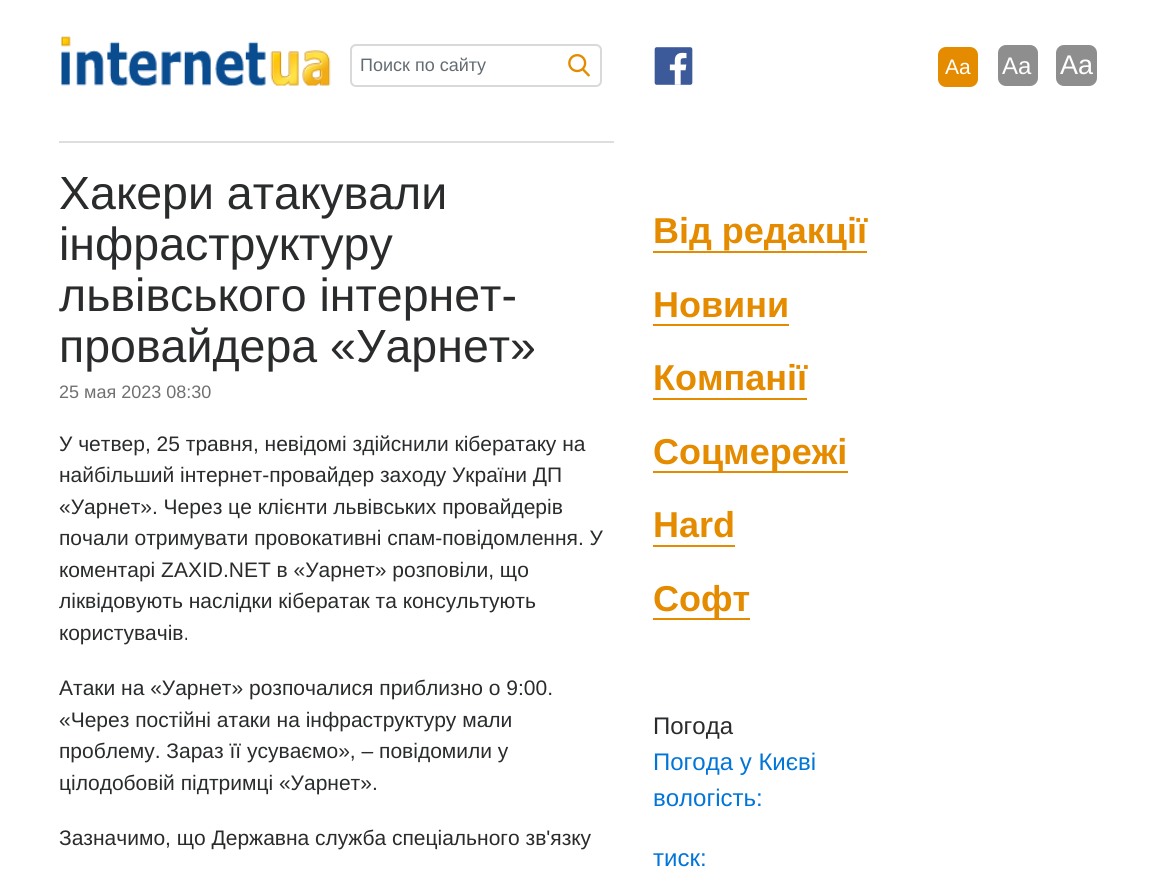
import math
import cairo


def round_path(ctx, x, y, w, h, r):
	ctx.new_sub_path()
	for i, (u, v) in enumerate([(x + w - r, y + h - r), (x + r, y + h - r), (x + r, y + r), (x + w - r, y + r)]):
		ctx.arc(u, v, r, i * math.pi / 2, (i + 1) * math.pi / 2)
	ctx.close_path()

def paste(ctx, path, x, y, w, h):
	ctx.save()
	ctx.set_source_surface(cairo.ImageSurface.create_from_png(path), x, y)
	ctx.rectangle(x, y, w, h)
	ctx.fill()
	ctx.restore()

def draw(ctx):
	ctx.set_source_rgb(1, 1, 1)
	ctx.paint()
	paste(ctx, 'media/1.png', 61, 36, 270, 50)
	round_path(ctx, 351, 45, 250, 41, 5)
	ctx.set_source_rgb(0.851, 0.851, 0.851)
	ctx.stroke()
	ctx.select_font_face('Liberation Sans')
	ctx.set_font_size(18)
	ctx.set_source_rgb(0.388, 0.424, 0.447)
	ctx.move_to(360, 71)
	ctx.show_text('Поиск по сайту')
	paste(ctx, 'media/2.png', 568, 54, 22, 23)
	paste(ctx, 'media/3.png', 654, 47, 39, 38)
	ctx.set_source_rgb(0.894, 0.545, 0)
	round_path(ctx, 938, 47, 40, 40, 8)
	ctx.fill()
	ctx.set_font_size(21)
	ctx.set_source_rgb(1, 1, 1)
	ctx.move_to(945, 74)
	ctx.show_text('Aa')
	ctx.set_source_rgb(0.557, 0.557, 0.557)
	round_path(ctx, 998, 45, 40, 41, 8)
	ctx.fill()
	ctx.set_font_size(24)
	ctx.set_source_rgb(1, 1, 1)
	ctx.move_to(1002, 74)
	ctx.show_text('Aa')
	ctx.set_source_rgb(0.557, 0.557, 0.557)
	round_path(ctx, 1056, 45, 41, 41, 8)
	ctx.fill()
	ctx.set_font_size(27)
	ctx.set_source_rgb(1, 1, 1)
	ctx.move_to(1060, 74)
	ctx.show_text('Aa')
	ctx.set_source_rgb(0.871, 0.871, 0.871)
	ctx.rectangle(59, 141, 555, 2)
	ctx.fill()
	ctx.set_font_size(46.5)
	ctx.set_source_rgb(0.161, 0.169, 0.173)
	for x, y, s in [
		(59, 209, 'Хакери атакували'),
		(59, 260, 'інфраструктуру'),
		(59, 311, 'львівського інтернет-'),
		(59, 362, 'провайдера «Уарнет»'),
	]:
		ctx.move_to(x, y)
		ctx.show_text(s)
	ctx.set_font_size(18)
	ctx.set_source_rgb(0.439, 0.439, 0.439)
	ctx.move_to(59, 398)
	ctx.show_text('25 мая 2023 08:30')
	ctx.set_font_size(21)
	ctx.set_source_rgb(0.161, 0.169, 0.173)
	for x, y, s in [
		(59, 451, 'У четвер, 25 травня, невідомі здійснили кібератаку на'),
		(59, 482, 'найбільший інтернет-провайдер заходу України ДП'),
		(59, 514, '«Уарнет». Через це клієнти львівських провайдерів'),
		(59, 545, 'почали отримувати провокативні спам-повідомлення. У'),
		(59, 577, 'коментарі ZAXID.NET в «Уарнет» розповіли, що'),
		(59, 608, 'ліквідовують наслідки кібератак та консультують'),
		(59, 640, 'користувачів.'),
		(59, 695, 'Атаки на «Уарнет» розпочалися приблизно о 9:00.'),
		(59, 727, '«Через постійні атаки на інфраструктуру мали'),
		(59, 758, 'проблему. Зараз її усуваємо», – повідомили у'),
		(59, 790, 'цілодобовій підтримці «Уарнет».'),
		(59, 845, 'Зазначимо, що Державна служба спеціального зв\'язку'),
	]:
		ctx.move_to(x, y)
		ctx.show_text(s)
	ctx.select_font_face('Liberation Sans', cairo.FONT_SLANT_NORMAL, cairo.FONT_WEIGHT_BOLD)
	ctx.set_font_size(36)
	ctx.set_source_rgb(0.894, 0.545, 0)
	ctx.move_to(653, 243)
	ctx.show_text('Від редакції')
	ctx.rectangle(653, 251, 214, 2)
	ctx.fill()
	ctx.move_to(653, 317)
	ctx.show_text('Новини')
	ctx.rectangle(653, 324, 136, 2)
	ctx.fill()
	ctx.move_to(653, 390)
	ctx.show_text('Компанії')
	ctx.rectangle(653, 398, 154, 2)
	ctx.fill()
	ctx.rectangle(653, 471, 195, 2)
	ctx.fill()
	ctx.move_to(653, 464)
	ctx.show_text('Соцмережі')
	ctx.move_to(653, 537)
	ctx.show_text('Hard')
	ctx.rectangle(653, 545, 82, 2)
	ctx.fill()
	ctx.rectangle(653, 618, 97, 2)
	ctx.fill()
	ctx.move_to(653, 611)
	ctx.show_text('Софт')
	ctx.select_font_face('Liberation Sans')
	ctx.set_font_size(24)
	ctx.set_source_rgb(0.161, 0.169, 0.173)
	ctx.move_to(653, 734)
	ctx.show_text('Погода')
	ctx.set_source_rgb(0.008, 0.459, 0.847)
	for x, y, s in [
		(653, 770, 'Погода у Києві'),
		(653, 806, 'вологість:'),
		(653, 866, 'тиск:'),
	]:
		ctx.move_to(x, y)
		ctx.show_text(s)


surface = cairo.ImageSurface(cairo.FORMAT_RGB24, 1157, 873)
ctx = cairo.Context(surface)
options = cairo.FontOptions()
options.set_hint_metrics(cairo.HINT_METRICS_OFF)
options.set_hint_style(cairo.HINT_STYLE_NONE)
ctx.set_font_options(options)
ctx.set_miter_limit(4)
draw(ctx)
surface.write_to_png('image.png')
